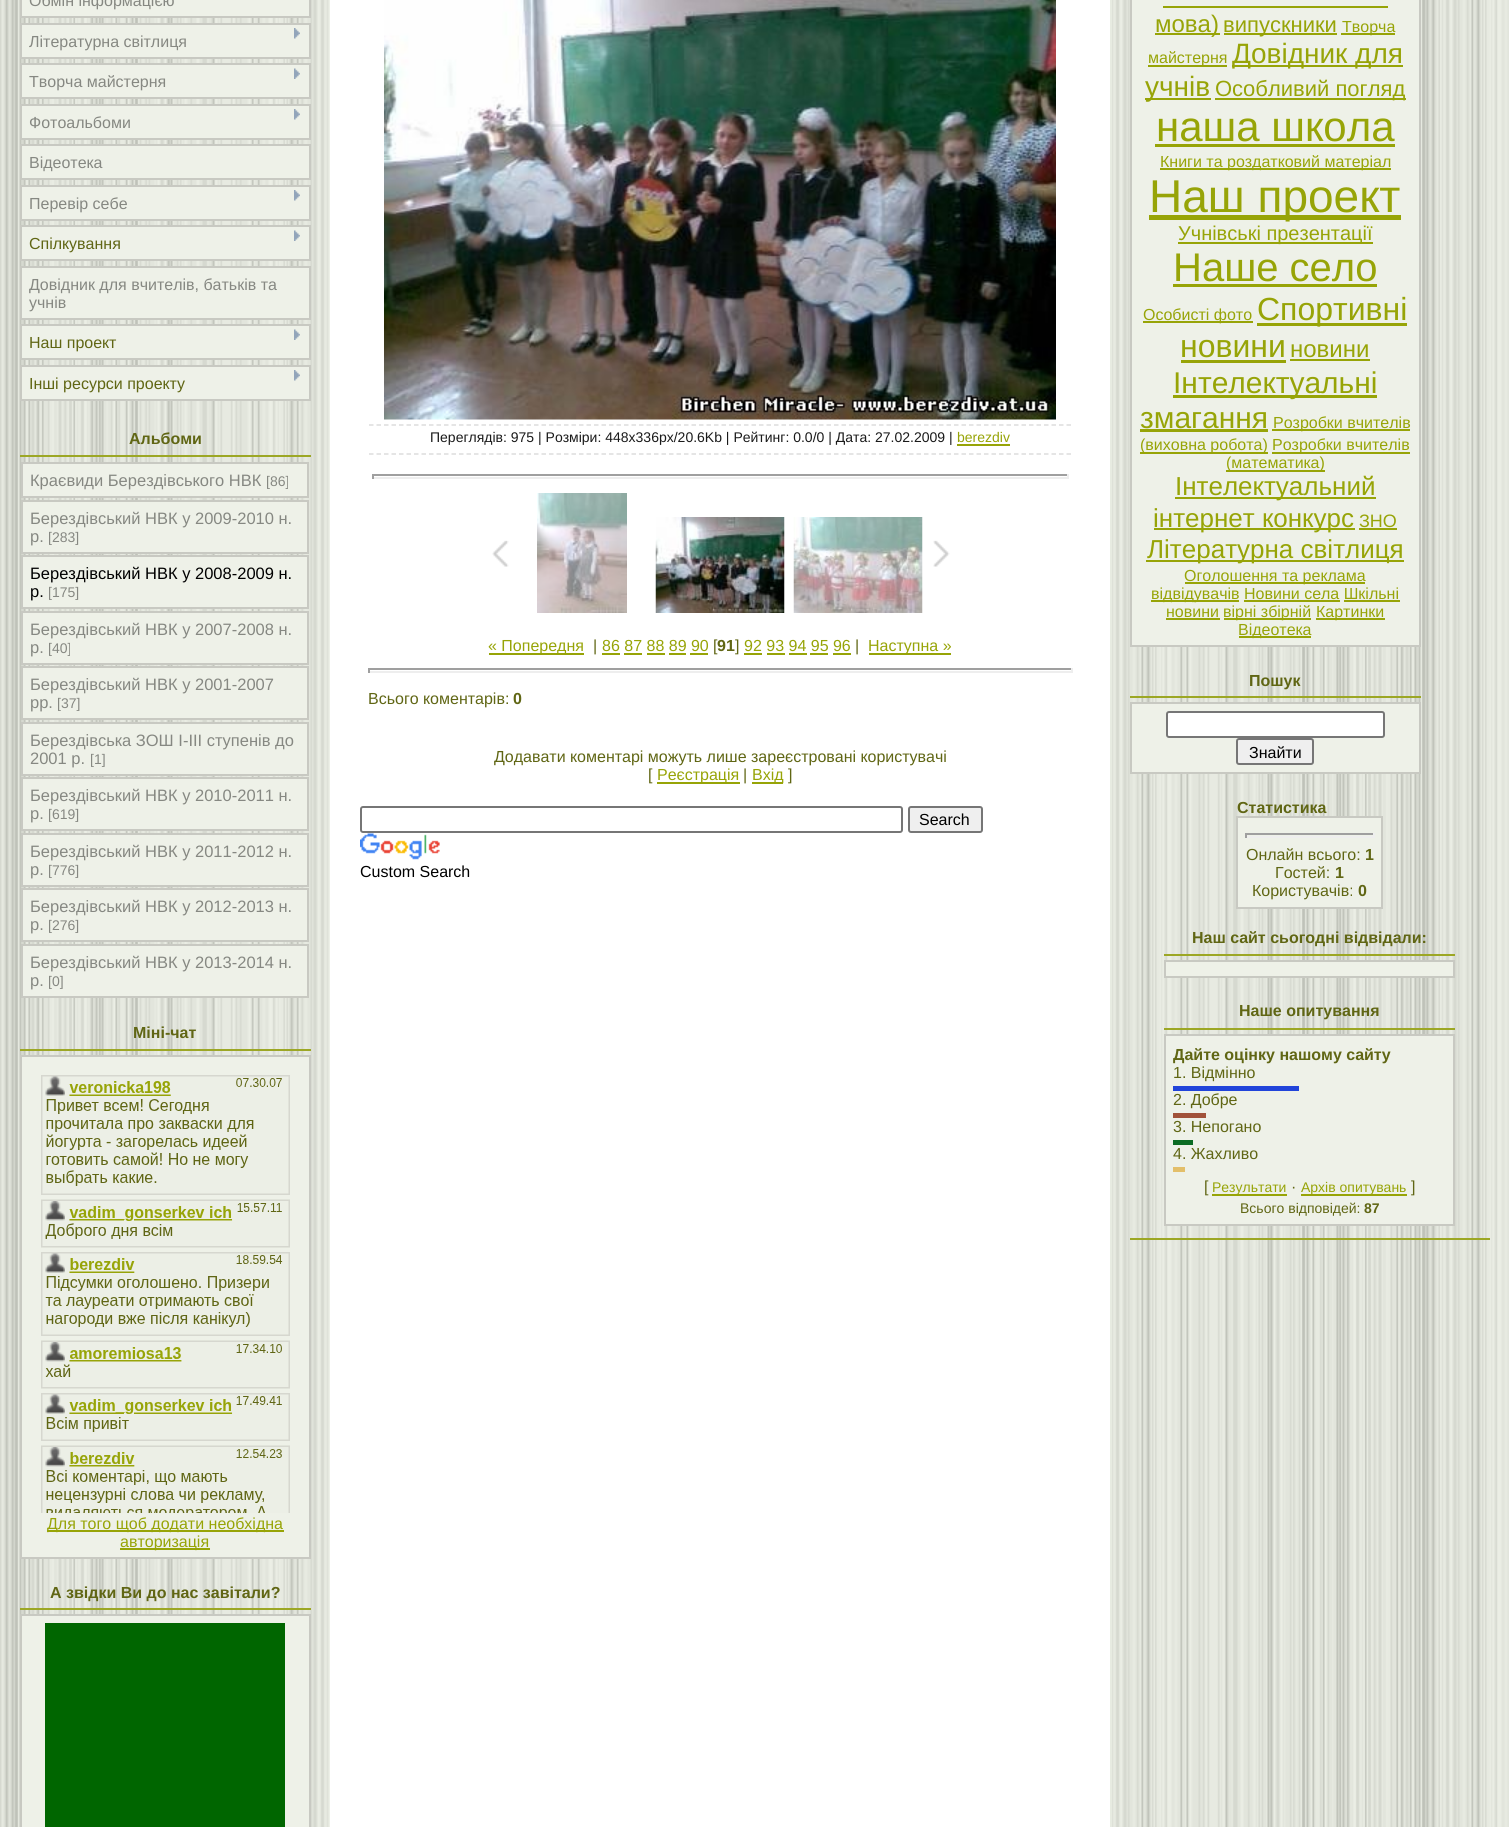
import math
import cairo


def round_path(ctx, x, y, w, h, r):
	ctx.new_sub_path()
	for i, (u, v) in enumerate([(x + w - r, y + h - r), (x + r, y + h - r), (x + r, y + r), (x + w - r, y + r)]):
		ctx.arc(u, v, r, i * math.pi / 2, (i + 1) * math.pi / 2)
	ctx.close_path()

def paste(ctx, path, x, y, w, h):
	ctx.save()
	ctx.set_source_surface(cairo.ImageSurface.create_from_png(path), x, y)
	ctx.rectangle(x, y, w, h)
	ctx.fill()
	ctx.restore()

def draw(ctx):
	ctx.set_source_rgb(1, 1, 1)
	ctx.paint()
	paste(ctx, 'media/1.png', 0, 0, 330, 1827)
	ctx.set_source_rgb(0.933, 0.945, 0.91)
	ctx.rectangle(21, -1, 289, 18)
	ctx.fill_preserve()
	ctx.set_source_rgb(0.784, 0.788, 0.761)
	ctx.stroke()
	ctx.select_font_face('Liberation Sans')
	ctx.set_font_size(16)
	ctx.set_source_rgb(0.525, 0.533, 0.51)
	ctx.move_to(29, 6)
	ctx.show_text('Обмін інформацією')
	ctx.set_source_rgb(0.933, 0.945, 0.91)
	ctx.rectangle(21, 24, 289, 34)
	ctx.fill_preserve()
	ctx.set_source_rgb(0.784, 0.788, 0.761)
	ctx.stroke()
	paste(ctx, 'media/2.png', 294, 28, 6, 11)
	ctx.set_source_rgb(0.525, 0.533, 0.51)
	ctx.move_to(29, 47)
	ctx.show_text('Літературна світлиця')
	ctx.set_source_rgb(0.933, 0.945, 0.91)
	ctx.rectangle(21, 64, 289, 34)
	ctx.fill_preserve()
	ctx.set_source_rgb(0.784, 0.788, 0.761)
	ctx.stroke()
	paste(ctx, 'media/3.png', 294, 68, 6, 11)
	ctx.set_source_rgb(0.525, 0.533, 0.51)
	ctx.move_to(29, 87)
	ctx.show_text('Творча майстерня')
	ctx.set_source_rgb(0.933, 0.945, 0.91)
	ctx.rectangle(21, 105, 289, 34)
	ctx.fill_preserve()
	ctx.set_source_rgb(0.784, 0.788, 0.761)
	ctx.stroke()
	paste(ctx, 'media/2.png', 294, 109, 6, 11)
	ctx.set_source_rgb(0.525, 0.533, 0.51)
	ctx.move_to(29, 128)
	ctx.show_text('Фотоальбоми')
	ctx.set_source_rgb(0.933, 0.945, 0.91)
	ctx.rectangle(21, 145, 289, 34)
	ctx.fill_preserve()
	ctx.set_source_rgb(0.784, 0.788, 0.761)
	ctx.stroke()
	ctx.set_source_rgb(0.525, 0.533, 0.51)
	ctx.move_to(29, 168)
	ctx.show_text('Відеотека')
	ctx.set_source_rgb(0.933, 0.945, 0.91)
	ctx.rectangle(21, 186, 289, 34)
	ctx.fill_preserve()
	ctx.set_source_rgb(0.784, 0.788, 0.761)
	ctx.stroke()
	paste(ctx, 'media/2.png', 294, 190, 6, 11)
	ctx.set_source_rgb(0.525, 0.533, 0.51)
	ctx.move_to(29, 209)
	ctx.show_text('Перевір себе')
	ctx.set_source_rgb(0.933, 0.945, 0.91)
	ctx.rectangle(21, 226, 289, 34)
	ctx.fill_preserve()
	ctx.set_source_rgb(0.784, 0.788, 0.761)
	ctx.stroke()
	paste(ctx, 'media/3.png', 294, 230, 6, 11)
	ctx.set_source_rgb(0.376, 0.4, 0.082)
	ctx.move_to(29, 249)
	ctx.show_text('Спілкування')
	ctx.set_source_rgb(0.933, 0.945, 0.91)
	ctx.rectangle(21, 267, 289, 52)
	ctx.fill_preserve()
	ctx.set_source_rgb(0.784, 0.788, 0.761)
	ctx.stroke()
	ctx.set_source_rgb(0.525, 0.533, 0.51)
	ctx.move_to(29, 290)
	ctx.show_text('Довідник для вчителів, батьків та')
	ctx.move_to(29, 308)
	ctx.show_text('учнів')
	ctx.set_source_rgb(0.933, 0.945, 0.91)
	ctx.rectangle(21, 325, 289, 34)
	ctx.fill_preserve()
	ctx.set_source_rgb(0.784, 0.788, 0.761)
	ctx.stroke()
	paste(ctx, 'media/3.png', 294, 329, 6, 11)
	ctx.set_source_rgb(0.376, 0.4, 0.082)
	ctx.move_to(29, 348)
	ctx.show_text('Наш проект')
	ctx.set_source_rgb(0.933, 0.945, 0.91)
	ctx.rectangle(21, 366, 289, 34)
	ctx.fill_preserve()
	ctx.set_source_rgb(0.784, 0.788, 0.761)
	ctx.stroke()
	paste(ctx, 'media/2.png', 294, 370, 6, 11)
	ctx.set_source_rgb(0.376, 0.4, 0.082)
	ctx.move_to(29, 389)
	ctx.show_text('Інші ресурси проекту')
	ctx.set_source_rgb(0.612, 0.655, 0.145)
	ctx.rectangle(20, 455, 291, 2)
	ctx.fill()
	ctx.select_font_face('Liberation Sans', cairo.FONT_SLANT_NORMAL, cairo.FONT_WEIGHT_BOLD)
	ctx.set_source_rgb(0.376, 0.4, 0.082)
	ctx.move_to(129, 444)
	ctx.show_text('Альбоми')
	ctx.set_source_rgb(0.933, 0.945, 0.91)
	ctx.rectangle(22, 463, 286, 34)
	ctx.fill_preserve()
	ctx.set_source_rgb(0.784, 0.788, 0.761)
	ctx.stroke()
	ctx.select_font_face('Liberation Sans')
	ctx.set_font_size(16.5)
	ctx.set_source_rgb(0.525, 0.533, 0.51)
	ctx.move_to(30, 486)
	ctx.show_text('Краєвиди Берездівського НВК')
	ctx.set_font_size(14)
	ctx.move_to(266, 486)
	ctx.show_text('[86]')
	ctx.set_source_rgb(0.933, 0.945, 0.91)
	ctx.rectangle(22, 501, 286, 52)
	ctx.fill_preserve()
	ctx.set_source_rgb(0.784, 0.788, 0.761)
	ctx.stroke()
	ctx.set_font_size(16.5)
	ctx.set_source_rgb(0.525, 0.533, 0.51)
	ctx.move_to(30, 524)
	ctx.show_text('Берeздівський НВК у 2009-2010 н.')
	ctx.move_to(30, 542)
	ctx.show_text('р.')
	ctx.set_font_size(14)
	ctx.move_to(48, 542)
	ctx.show_text('[283]')
	ctx.set_source_rgb(0.933, 0.945, 0.91)
	ctx.rectangle(22, 556, 286, 52)
	ctx.fill_preserve()
	ctx.set_source_rgb(0.784, 0.788, 0.761)
	ctx.stroke()
	ctx.set_font_size(16.5)
	ctx.set_source_rgb(0, 0, 0)
	ctx.move_to(30, 579)
	ctx.show_text('Берездівський НВК у 2008-2009 н.')
	ctx.move_to(30, 597)
	ctx.show_text('р.')
	ctx.set_font_size(14)
	ctx.set_source_rgb(0.525, 0.533, 0.51)
	ctx.move_to(48, 597)
	ctx.show_text('[175]')
	ctx.set_source_rgb(0.933, 0.945, 0.91)
	ctx.rectangle(22, 612, 286, 52)
	ctx.fill_preserve()
	ctx.set_source_rgb(0.784, 0.788, 0.761)
	ctx.stroke()
	ctx.set_font_size(16.5)
	ctx.set_source_rgb(0.525, 0.533, 0.51)
	ctx.move_to(30, 635)
	ctx.show_text('Берездівський НВК у 2007-2008 н.')
	ctx.move_to(30, 653)
	ctx.show_text('р.')
	ctx.set_font_size(14)
	ctx.move_to(48, 653)
	ctx.show_text('[40]')
	ctx.set_source_rgb(0.933, 0.945, 0.91)
	ctx.rectangle(22, 667, 286, 52)
	ctx.fill_preserve()
	ctx.set_source_rgb(0.784, 0.788, 0.761)
	ctx.stroke()
	ctx.set_font_size(16.5)
	ctx.set_source_rgb(0.525, 0.533, 0.51)
	ctx.move_to(30, 690)
	ctx.show_text('Берездівський НВК у 2001-2007')
	ctx.move_to(30, 708)
	ctx.show_text('рр.')
	ctx.set_font_size(14)
	ctx.move_to(57, 708)
	ctx.show_text('[37]')
	ctx.set_source_rgb(0.933, 0.945, 0.91)
	ctx.rectangle(22, 723, 286, 52)
	ctx.fill_preserve()
	ctx.set_source_rgb(0.784, 0.788, 0.761)
	ctx.stroke()
	ctx.set_font_size(16.5)
	ctx.set_source_rgb(0.525, 0.533, 0.51)
	ctx.move_to(30, 746)
	ctx.show_text('Берездівська ЗОШ І-ІІІ ступенів до')
	ctx.move_to(30, 764)
	ctx.show_text('2001 р.')
	ctx.set_font_size(14)
	ctx.move_to(90, 764)
	ctx.show_text('[1]')
	ctx.set_source_rgb(0.933, 0.945, 0.91)
	ctx.rectangle(22, 778, 286, 52)
	ctx.fill_preserve()
	ctx.set_source_rgb(0.784, 0.788, 0.761)
	ctx.stroke()
	ctx.set_font_size(16.5)
	ctx.set_source_rgb(0.525, 0.533, 0.51)
	ctx.move_to(30, 801)
	ctx.show_text('Берездівський НВК у 2010-2011 н.')
	ctx.move_to(30, 819)
	ctx.show_text('р.')
	ctx.set_font_size(14)
	ctx.move_to(48, 819)
	ctx.show_text('[619]')
	ctx.set_source_rgb(0.933, 0.945, 0.91)
	ctx.rectangle(22, 834, 286, 52)
	ctx.fill_preserve()
	ctx.set_source_rgb(0.784, 0.788, 0.761)
	ctx.stroke()
	ctx.set_font_size(16.5)
	ctx.set_source_rgb(0.525, 0.533, 0.51)
	ctx.move_to(30, 857)
	ctx.show_text('Берездівський НВК у 2011-2012 н.')
	ctx.move_to(30, 875)
	ctx.show_text('р.')
	ctx.set_font_size(14)
	ctx.move_to(48, 875)
	ctx.show_text('[776]')
	ctx.set_source_rgb(0.933, 0.945, 0.91)
	ctx.rectangle(22, 889, 286, 52)
	ctx.fill_preserve()
	ctx.set_source_rgb(0.784, 0.788, 0.761)
	ctx.stroke()
	ctx.set_font_size(16.5)
	ctx.set_source_rgb(0.525, 0.533, 0.51)
	ctx.move_to(30, 912)
	ctx.show_text('Берездівський НВК у 2012-2013 н.')
	ctx.move_to(30, 930)
	ctx.show_text('р.')
	ctx.set_font_size(14)
	ctx.move_to(48, 930)
	ctx.show_text('[276]')
	ctx.set_source_rgb(0.933, 0.945, 0.91)
	ctx.rectangle(22, 945, 286, 52)
	ctx.fill_preserve()
	ctx.set_source_rgb(0.784, 0.788, 0.761)
	ctx.stroke()
	ctx.set_font_size(16.5)
	ctx.set_source_rgb(0.525, 0.533, 0.51)
	ctx.move_to(30, 968)
	ctx.show_text('Берездівський НВК у 2013-2014 н.')
	ctx.move_to(30, 986)
	ctx.show_text('р.')
	ctx.set_font_size(14)
	ctx.move_to(48, 986)
	ctx.show_text('[0]')
	ctx.set_source_rgb(0.612, 0.655, 0.145)
	ctx.rectangle(20, 1049, 291, 2)
	ctx.fill()
	ctx.select_font_face('Liberation Sans', cairo.FONT_SLANT_NORMAL, cairo.FONT_WEIGHT_BOLD)
	ctx.set_font_size(16)
	ctx.set_source_rgb(0.376, 0.4, 0.082)
	ctx.move_to(133, 1038)
	ctx.show_text('Міні-чат')
	ctx.set_source_rgb(0.933, 0.945, 0.91)
	ctx.rectangle(21, 1056, 289, 502)
	ctx.fill_preserve()
	ctx.set_source_rgb(0.784, 0.788, 0.761)
	ctx.stroke()
	paste(ctx, 'media/4.png', 41, 1075, 249, 438)
	ctx.set_source_rgb(0.592, 0.643, 0.031)
	ctx.rectangle(47, 1530, 237, 2)
	ctx.fill()
	ctx.select_font_face('Liberation Sans')
	ctx.move_to(47, 1529)
	ctx.show_text('Для того щоб додати необхідна')
	ctx.rectangle(120, 1548, 90, 2)
	ctx.fill()
	ctx.move_to(120, 1547)
	ctx.show_text('авторизація')
	ctx.set_source_rgb(0.612, 0.655, 0.145)
	ctx.rectangle(20, 1608, 291, 2)
	ctx.fill()
	ctx.select_font_face('Liberation Sans', cairo.FONT_SLANT_NORMAL, cairo.FONT_WEIGHT_BOLD)
	ctx.set_source_rgb(0.376, 0.4, 0.082)
	ctx.move_to(50, 1598)
	ctx.show_text('А звідки Ви до нас завітали?')
	ctx.set_source_rgb(0.933, 0.945, 0.91)
	ctx.rectangle(21, 1615, 289, 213)
	ctx.fill_preserve()
	ctx.set_source_rgb(0.784, 0.788, 0.761)
	ctx.stroke()
	ctx.set_source_rgb(0, 0.4, 0)
	ctx.rectangle(45, 1623, 240, 204)
	ctx.fill()
	paste(ctx, 'media/5.png', 384, 0, 672, 420)
	ctx.new_path()
	ctx.move_to(369, 425)
	ctx.line_to(1071, 425)
	ctx.set_source_rgb(0.867, 0.867, 0.867)
	ctx.set_line_width(1.5)
	ctx.set_dash([4.5, 3])
	ctx.stroke()
	ctx.new_path()
	ctx.move_to(369, 454)
	ctx.line_to(1071, 454)
	ctx.stroke()
	ctx.select_font_face('Liberation Sans')
	ctx.set_font_size(14)
	ctx.set_source_rgb(0.102, 0.102, 0.102)
	ctx.move_to(430, 442)
	ctx.show_text('Переглядів: 975 | Розміри: 448x336px/20.6Kb | Рейтинг: 0.0/0 | Дата: 27.02.2009 |')
	ctx.set_source_rgb(0.592, 0.643, 0.031)
	ctx.move_to(957, 442)
	ctx.show_text('berezdiv')
	ctx.rectangle(957, 444, 53, 2)
	ctx.fill()
	ctx.set_source_rgb(0.624, 0.624, 0.624)
	ctx.rectangle(372, 474, 696, 2)
	ctx.fill()
	ctx.set_source_rgb(0.933, 0.933, 0.933)
	ctx.rectangle(1067, 474, 2, 5)
	ctx.rectangle(372, 477, 696, 2)
	ctx.fill()
	ctx.set_source_rgb(0.624, 0.624, 0.624)
	ctx.rectangle(372, 474, 2, 5)
	ctx.fill()
	paste(ctx, 'media/6.png', 492, 540, 17, 27)
	paste(ctx, 'media/7.png', 537, 493, 90, 120)
	paste(ctx, 'media/8.png', 655, 517, 130, 96)
	paste(ctx, 'media/9.png', 793, 517, 130, 96)
	paste(ctx, 'media/10.png', 933, 540, 17, 27)
	ctx.set_source_rgb(0.592, 0.643, 0.031)
	ctx.rectangle(489, 653, 95, 2)
	ctx.fill()
	ctx.set_font_size(16)
	ctx.move_to(488, 651)
	ctx.show_text('« Попередня')
	ctx.set_source_rgb(0.376, 0.4, 0.082)
	ctx.move_to(593, 651)
	ctx.show_text('|')
	ctx.set_source_rgb(0.592, 0.643, 0.031)
	ctx.move_to(602, 651)
	ctx.show_text('86 87 88 89 90')
	ctx.rectangle(602, 653, 18, 2)
	ctx.fill()
	ctx.set_source_rgb(0.376, 0.4, 0.082)
	ctx.move_to(713, 651)
	ctx.show_text('[')
	ctx.select_font_face('Liberation Sans', cairo.FONT_SLANT_NORMAL, cairo.FONT_WEIGHT_BOLD)
	ctx.move_to(717, 651)
	ctx.show_text('91')
	ctx.select_font_face('Liberation Sans')
	ctx.move_to(735, 651)
	ctx.show_text(']')
	ctx.set_source_rgb(0.592, 0.643, 0.031)
	ctx.move_to(744, 651)
	ctx.show_text('92 93 94 95 96')
	ctx.rectangle(744, 653, 18, 2)
	ctx.fill()
	ctx.set_source_rgb(0.376, 0.4, 0.082)
	ctx.move_to(855, 651)
	ctx.show_text('|')
	ctx.set_source_rgb(0.592, 0.643, 0.031)
	ctx.rectangle(869, 653, 82, 2)
	ctx.fill()
	ctx.move_to(868, 651)
	ctx.show_text('Наступна »')
	ctx.rectangle(624, 653, 18, 2)
	ctx.rectangle(647, 653, 18, 2)
	ctx.rectangle(669, 653, 17, 2)
	ctx.rectangle(690, 653, 18, 2)
	ctx.rectangle(767, 653, 18, 2)
	ctx.rectangle(789, 653, 18, 2)
	ctx.rectangle(810, 653, 18, 2)
	ctx.rectangle(833, 653, 18, 2)
	ctx.fill()
	ctx.set_source_rgb(0.624, 0.624, 0.624)
	ctx.rectangle(368, 668, 705, 2)
	ctx.fill()
	ctx.set_source_rgb(0.933, 0.933, 0.933)
	ctx.rectangle(1071, 668, 2, 5)
	ctx.rectangle(368, 671, 705, 2)
	ctx.fill()
	ctx.set_source_rgb(0.624, 0.624, 0.624)
	ctx.rectangle(368, 668, 2, 5)
	ctx.fill()
	ctx.set_source_rgb(0.376, 0.4, 0.082)
	ctx.move_to(368, 704)
	ctx.show_text('Всього коментарів:')
	ctx.select_font_face('Liberation Sans', cairo.FONT_SLANT_NORMAL, cairo.FONT_WEIGHT_BOLD)
	ctx.move_to(513, 704)
	ctx.show_text('0')
	ctx.select_font_face('Liberation Sans')
	ctx.move_to(494, 762)
	ctx.show_text('Додавати коментарі можуть лише зареєстровані користувачі')
	ctx.move_to(648, 780)
	ctx.show_text('[')
	ctx.set_source_rgb(0.592, 0.643, 0.031)
	ctx.rectangle(657, 782, 83, 2)
	ctx.fill()
	ctx.move_to(657, 780)
	ctx.show_text('Реєстрація')
	ctx.set_source_rgb(0.376, 0.4, 0.082)
	ctx.move_to(743, 780)
	ctx.show_text('|')
	ctx.set_source_rgb(0.592, 0.643, 0.031)
	ctx.rectangle(752, 782, 31, 2)
	ctx.fill()
	ctx.move_to(752, 780)
	ctx.show_text('Вхід')
	ctx.set_source_rgb(0.376, 0.4, 0.082)
	ctx.move_to(788, 780)
	ctx.show_text(']')
	round_path(ctx, 361, 807, 541, 25, 2)
	ctx.set_source_rgb(0.463, 0.463, 0.463)
	ctx.set_line_width(2)
	ctx.set_dash([])
	ctx.stroke()
	ctx.set_source_rgb(0.937, 0.937, 0.937)
	round_path(ctx, 909, 807, 73, 25, 2)
	ctx.fill_preserve()
	ctx.set_source_rgb(0.463, 0.463, 0.463)
	ctx.stroke()
	ctx.set_source_rgb(0, 0, 0)
	ctx.move_to(919, 825)
	ctx.show_text('Search')
	paste(ctx, 'media/11.png', 360, 833, 80, 27)
	ctx.move_to(360, 877)
	ctx.show_text('Custom Search')
	ctx.set_source_rgb(0.906, 0.918, 0.882)
	ctx.rectangle(1110, 0, 2, 1827)
	ctx.fill()
	paste(ctx, 'media/12.png', 1112, 0, 397, 1827)
	ctx.set_source_rgb(0.933, 0.945, 0.91)
	ctx.rectangle(1131, -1, 289, 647)
	ctx.fill_preserve()
	ctx.set_source_rgb(0.784, 0.788, 0.761)
	ctx.stroke()
	ctx.set_source_rgb(0.592, 0.643, 0.031)
	ctx.rectangle(1155, 33, 65, 2)
	ctx.fill()
	ctx.set_font_size(24)
	ctx.move_to(1155, 32)
	ctx.show_text('мова)')
	ctx.rectangle(1163, 6, 225, 2)
	ctx.fill()
	ctx.rectangle(1224, 33, 113, 2)
	ctx.fill()
	ctx.set_font_size(22)
	ctx.move_to(1223, 32)
	ctx.show_text('випускники')
	ctx.rectangle(1341, 33, 54, 2)
	ctx.fill()
	ctx.set_font_size(16)
	ctx.move_to(1342, 32)
	ctx.show_text('Творча')
	ctx.rectangle(1148, 65, 79, 2)
	ctx.fill()
	ctx.move_to(1148, 63)
	ctx.show_text('майстерня')
	ctx.rectangle(1232, 65, 171, 2)
	ctx.fill()
	ctx.set_font_size(28)
	ctx.move_to(1232, 63)
	ctx.show_text('Довідник для')
	ctx.rectangle(1145, 98, 66, 2)
	ctx.fill()
	ctx.move_to(1145, 96)
	ctx.show_text('учнів')
	ctx.rectangle(1215, 98, 191, 2)
	ctx.fill()
	ctx.set_font_size(22)
	ctx.move_to(1215, 96)
	ctx.show_text('Особливий погляд')
	ctx.set_font_size(42)
	ctx.move_to(1156, 141)
	ctx.show_text('наша школа')
	ctx.rectangle(1155, 144, 240, 3)
	ctx.fill()
	ctx.rectangle(1160, 168, 231, 2)
	ctx.fill()
	ctx.set_font_size(16)
	ctx.move_to(1160, 167)
	ctx.show_text('Книги та роздатковий матеріал')
	ctx.rectangle(1149, 215, 252, 5)
	ctx.fill()
	ctx.set_font_size(46)
	ctx.move_to(1149, 212)
	ctx.show_text('Наш проект')
	ctx.rectangle(1178, 242, 195, 2)
	ctx.fill()
	ctx.set_font_size(20)
	ctx.move_to(1178, 240)
	ctx.show_text('Учнівські презентації')
	ctx.set_font_size(40)
	ctx.move_to(1173, 281)
	ctx.show_text('Наше село')
	ctx.rectangle(1173, 284, 204, 3)
	ctx.fill()
	ctx.rectangle(1143, 321, 110, 2)
	ctx.fill()
	ctx.set_font_size(16)
	ctx.move_to(1143, 320)
	ctx.show_text('Особисті фото')
	ctx.rectangle(1257, 323, 150, 3)
	ctx.fill()
	ctx.set_font_size(32)
	ctx.move_to(1257, 320)
	ctx.show_text('Спортивні')
	ctx.move_to(1180, 357)
	ctx.show_text('новини')
	ctx.rectangle(1181, 360, 105, 3)
	ctx.fill()
	ctx.set_font_size(24)
	ctx.move_to(1290, 357)
	ctx.show_text('новини')
	ctx.rectangle(1290, 359, 80, 2)
	ctx.fill()
	ctx.rectangle(1173, 395, 204, 3)
	ctx.fill()
	ctx.set_font_size(30)
	ctx.move_to(1173, 393)
	ctx.show_text('Інтелектуальні')
	ctx.move_to(1140, 428)
	ctx.show_text('змагання')
	ctx.rectangle(1272, 429, 138, 2)
	ctx.fill()
	ctx.set_font_size(16)
	ctx.move_to(1273, 428)
	ctx.show_text('Розробки вчителів')
	ctx.rectangle(1140, 429, 128, 3)
	ctx.fill()
	ctx.rectangle(1140, 452, 128, 2)
	ctx.fill()
	ctx.move_to(1140, 450)
	ctx.show_text('(виховна робота)')
	ctx.rectangle(1272, 452, 138, 2)
	ctx.fill()
	ctx.move_to(1272, 450)
	ctx.show_text('Розробки вчителів')
	ctx.rectangle(1226, 470, 99, 2)
	ctx.fill()
	ctx.move_to(1226, 468)
	ctx.show_text('(математика)')
	ctx.rectangle(1175, 497, 201, 2)
	ctx.fill()
	ctx.set_font_size(26)
	ctx.move_to(1175, 495)
	ctx.show_text('Інтелектуальний')
	ctx.rectangle(1154, 528, 201, 2)
	ctx.fill()
	ctx.move_to(1153, 527)
	ctx.show_text('інтернет конкурс')
	ctx.set_font_size(18)
	ctx.move_to(1359, 527)
	ctx.show_text('ЗНО')
	ctx.rectangle(1359, 528, 38, 2)
	ctx.fill()
	ctx.rectangle(1146, 560, 258, 2)
	ctx.fill()
	ctx.set_font_size(26)
	ctx.move_to(1147, 558)
	ctx.show_text('Літературна світлиця')
	ctx.rectangle(1185, 582, 180, 2)
	ctx.fill()
	ctx.set_font_size(16)
	ctx.move_to(1184, 581)
	ctx.show_text('Оголошення та реклама')
	ctx.rectangle(1151, 600, 88, 2)
	ctx.fill()
	ctx.move_to(1151, 599)
	ctx.show_text('відвідувачів Новини села Шкільні')
	ctx.rectangle(1244, 600, 96, 2)
	ctx.fill()
	ctx.rectangle(1344, 600, 56, 2)
	ctx.fill()
	ctx.move_to(1166, 617)
	ctx.show_text('новини')
	ctx.rectangle(1166, 618, 54, 2)
	ctx.fill()
	ctx.rectangle(1224, 618, 87, 2)
	ctx.fill()
	ctx.move_to(1223, 617)
	ctx.show_text('вірні збірній')
	ctx.rectangle(1316, 618, 69, 2)
	ctx.fill()
	ctx.move_to(1316, 617)
	ctx.show_text('Картинки')
	ctx.rectangle(1239, 636, 72, 2)
	ctx.fill()
	ctx.move_to(1238, 635)
	ctx.show_text('Відеотека')
	ctx.set_source_rgb(0.612, 0.655, 0.145)
	ctx.rectangle(1130, 696, 291, 2)
	ctx.fill()
	ctx.select_font_face('Liberation Sans', cairo.FONT_SLANT_NORMAL, cairo.FONT_WEIGHT_BOLD)
	ctx.set_source_rgb(0.376, 0.4, 0.082)
	ctx.move_to(1249, 686)
	ctx.show_text('Пошук')
	ctx.set_source_rgb(0.933, 0.945, 0.91)
	ctx.rectangle(1131, 703, 289, 70)
	ctx.fill_preserve()
	ctx.set_source_rgb(0.784, 0.788, 0.761)
	ctx.stroke()
	ctx.set_source_rgb(1, 1, 1)
	round_path(ctx, 1167, 712, 217, 25, 2)
	ctx.fill_preserve()
	ctx.set_source_rgb(0.463, 0.463, 0.463)
	ctx.stroke()
	ctx.set_source_rgb(0.937, 0.937, 0.937)
	round_path(ctx, 1237, 739, 76, 25, 2)
	ctx.fill_preserve()
	ctx.set_source_rgb(0.463, 0.463, 0.463)
	ctx.stroke()
	ctx.select_font_face('Liberation Sans')
	ctx.set_source_rgb(0, 0, 0)
	ctx.move_to(1249, 758)
	ctx.show_text('Знайти')
	ctx.set_source_rgb(0.612, 0.655, 0.145)
	ctx.rectangle(1130, 1238, 360, 2)
	ctx.fill()
	ctx.select_font_face('Liberation Sans', cairo.FONT_SLANT_NORMAL, cairo.FONT_WEIGHT_BOLD)
	ctx.set_source_rgb(0.376, 0.4, 0.082)
	ctx.move_to(1237, 813)
	ctx.show_text('Статистика')
	ctx.set_source_rgb(0.933, 0.945, 0.91)
	ctx.rectangle(1237, 817, 145, 91)
	ctx.fill_preserve()
	ctx.set_source_rgb(0.784, 0.788, 0.761)
	ctx.stroke()
	ctx.set_source_rgb(0.624, 0.624, 0.624)
	ctx.rectangle(1245, 833, 129, 2)
	ctx.fill()
	ctx.set_source_rgb(0.933, 0.933, 0.933)
	ctx.rectangle(1373, 833, 2, 5)
	ctx.rectangle(1245, 836, 129, 2)
	ctx.fill()
	ctx.set_source_rgb(0.624, 0.624, 0.624)
	ctx.rectangle(1245, 833, 2, 5)
	ctx.fill()
	ctx.select_font_face('Liberation Sans')
	ctx.set_source_rgb(0.376, 0.4, 0.082)
	ctx.move_to(1246, 860)
	ctx.show_text('Онлайн всього:')
	ctx.select_font_face('Liberation Sans', cairo.FONT_SLANT_NORMAL, cairo.FONT_WEIGHT_BOLD)
	ctx.move_to(1365, 860)
	ctx.show_text('1')
	ctx.select_font_face('Liberation Sans')
	ctx.move_to(1275, 878)
	ctx.show_text('Гостей:')
	ctx.select_font_face('Liberation Sans', cairo.FONT_SLANT_NORMAL, cairo.FONT_WEIGHT_BOLD)
	ctx.move_to(1335, 878)
	ctx.show_text('1')
	ctx.select_font_face('Liberation Sans')
	ctx.move_to(1252, 896)
	ctx.show_text('Користувачів:')
	ctx.select_font_face('Liberation Sans', cairo.FONT_SLANT_NORMAL, cairo.FONT_WEIGHT_BOLD)
	ctx.move_to(1358, 896)
	ctx.show_text('0')
	ctx.set_source_rgb(0.612, 0.655, 0.145)
	ctx.rectangle(1164, 954, 291, 2)
	ctx.fill()
	ctx.set_source_rgb(0.376, 0.4, 0.082)
	ctx.move_to(1192, 943)
	ctx.show_text('Наш сайт сьогодні відвідали:')
	ctx.set_source_rgb(0.933, 0.945, 0.91)
	ctx.rectangle(1165, 961, 289, 16)
	ctx.fill_preserve()
	ctx.set_source_rgb(0.784, 0.788, 0.761)
	ctx.stroke()
	ctx.set_source_rgb(0.612, 0.655, 0.145)
	ctx.rectangle(1164, 1028, 291, 2)
	ctx.fill()
	ctx.set_source_rgb(0.376, 0.4, 0.082)
	ctx.move_to(1239, 1016)
	ctx.show_text('Наше опитування')
	ctx.set_source_rgb(0.933, 0.945, 0.91)
	ctx.rectangle(1165, 1035, 289, 190)
	ctx.fill_preserve()
	ctx.set_source_rgb(0.784, 0.788, 0.761)
	ctx.stroke()
	ctx.set_source_rgb(0.376, 0.4, 0.082)
	ctx.move_to(1173, 1060)
	ctx.show_text('Дайте оцінку нашому сайту')
	ctx.select_font_face('Liberation Sans')
	ctx.move_to(1173, 1078)
	ctx.show_text('1. Відмінно')
	ctx.set_source_rgb(0.129, 0.267, 0.855)
	ctx.rectangle(1173, 1086, 126, 5)
	ctx.fill()
	ctx.set_source_rgb(0.376, 0.4, 0.082)
	ctx.move_to(1173, 1105)
	ctx.show_text('2. Добре')
	ctx.set_source_rgb(0.631, 0.322, 0.227)
	ctx.rectangle(1173, 1113, 33, 5)
	ctx.fill()
	ctx.set_source_rgb(0.376, 0.4, 0.082)
	ctx.move_to(1173, 1132)
	ctx.show_text('3. Непогано')
	ctx.set_source_rgb(0.043, 0.424, 0.141)
	ctx.rectangle(1173, 1140, 20, 5)
	ctx.fill()
	ctx.set_source_rgb(0.376, 0.4, 0.082)
	ctx.move_to(1173, 1159)
	ctx.show_text('4. Жахливо')
	ctx.set_source_rgb(0.89, 0.749, 0.416)
	ctx.rectangle(1173, 1167, 12, 5)
	ctx.fill()
	ctx.set_source_rgb(0.376, 0.4, 0.082)
	ctx.move_to(1204, 1192)
	ctx.show_text('[')
	ctx.set_source_rgb(0.592, 0.643, 0.031)
	ctx.rectangle(1212, 1194, 75, 2)
	ctx.fill()
	ctx.set_font_size(14)
	ctx.move_to(1212, 1192)
	ctx.show_text('Результати')
	ctx.set_font_size(16)
	ctx.set_source_rgb(0.376, 0.4, 0.082)
	ctx.move_to(1291, 1192)
	ctx.show_text('·')
	ctx.set_source_rgb(0.592, 0.643, 0.031)
	ctx.rectangle(1301, 1194, 106, 2)
	ctx.fill()
	ctx.set_font_size(14)
	ctx.move_to(1301, 1192)
	ctx.show_text('Архів опитувань')
	ctx.set_font_size(16)
	ctx.set_source_rgb(0.376, 0.4, 0.082)
	ctx.move_to(1411, 1192)
	ctx.show_text(']')
	ctx.set_font_size(14)
	ctx.move_to(1240, 1213)
	ctx.show_text('Всього відповідей:')
	ctx.select_font_face('Liberation Sans', cairo.FONT_SLANT_NORMAL, cairo.FONT_WEIGHT_BOLD)
	ctx.move_to(1364, 1213)
	ctx.show_text('87')


surface = cairo.ImageSurface(cairo.FORMAT_RGB24, 1509, 1827)
ctx = cairo.Context(surface)
options = cairo.FontOptions()
options.set_hint_metrics(cairo.HINT_METRICS_OFF)
options.set_hint_style(cairo.HINT_STYLE_NONE)
ctx.set_font_options(options)
ctx.set_miter_limit(4)
draw(ctx)
surface.write_to_png('image.png')
